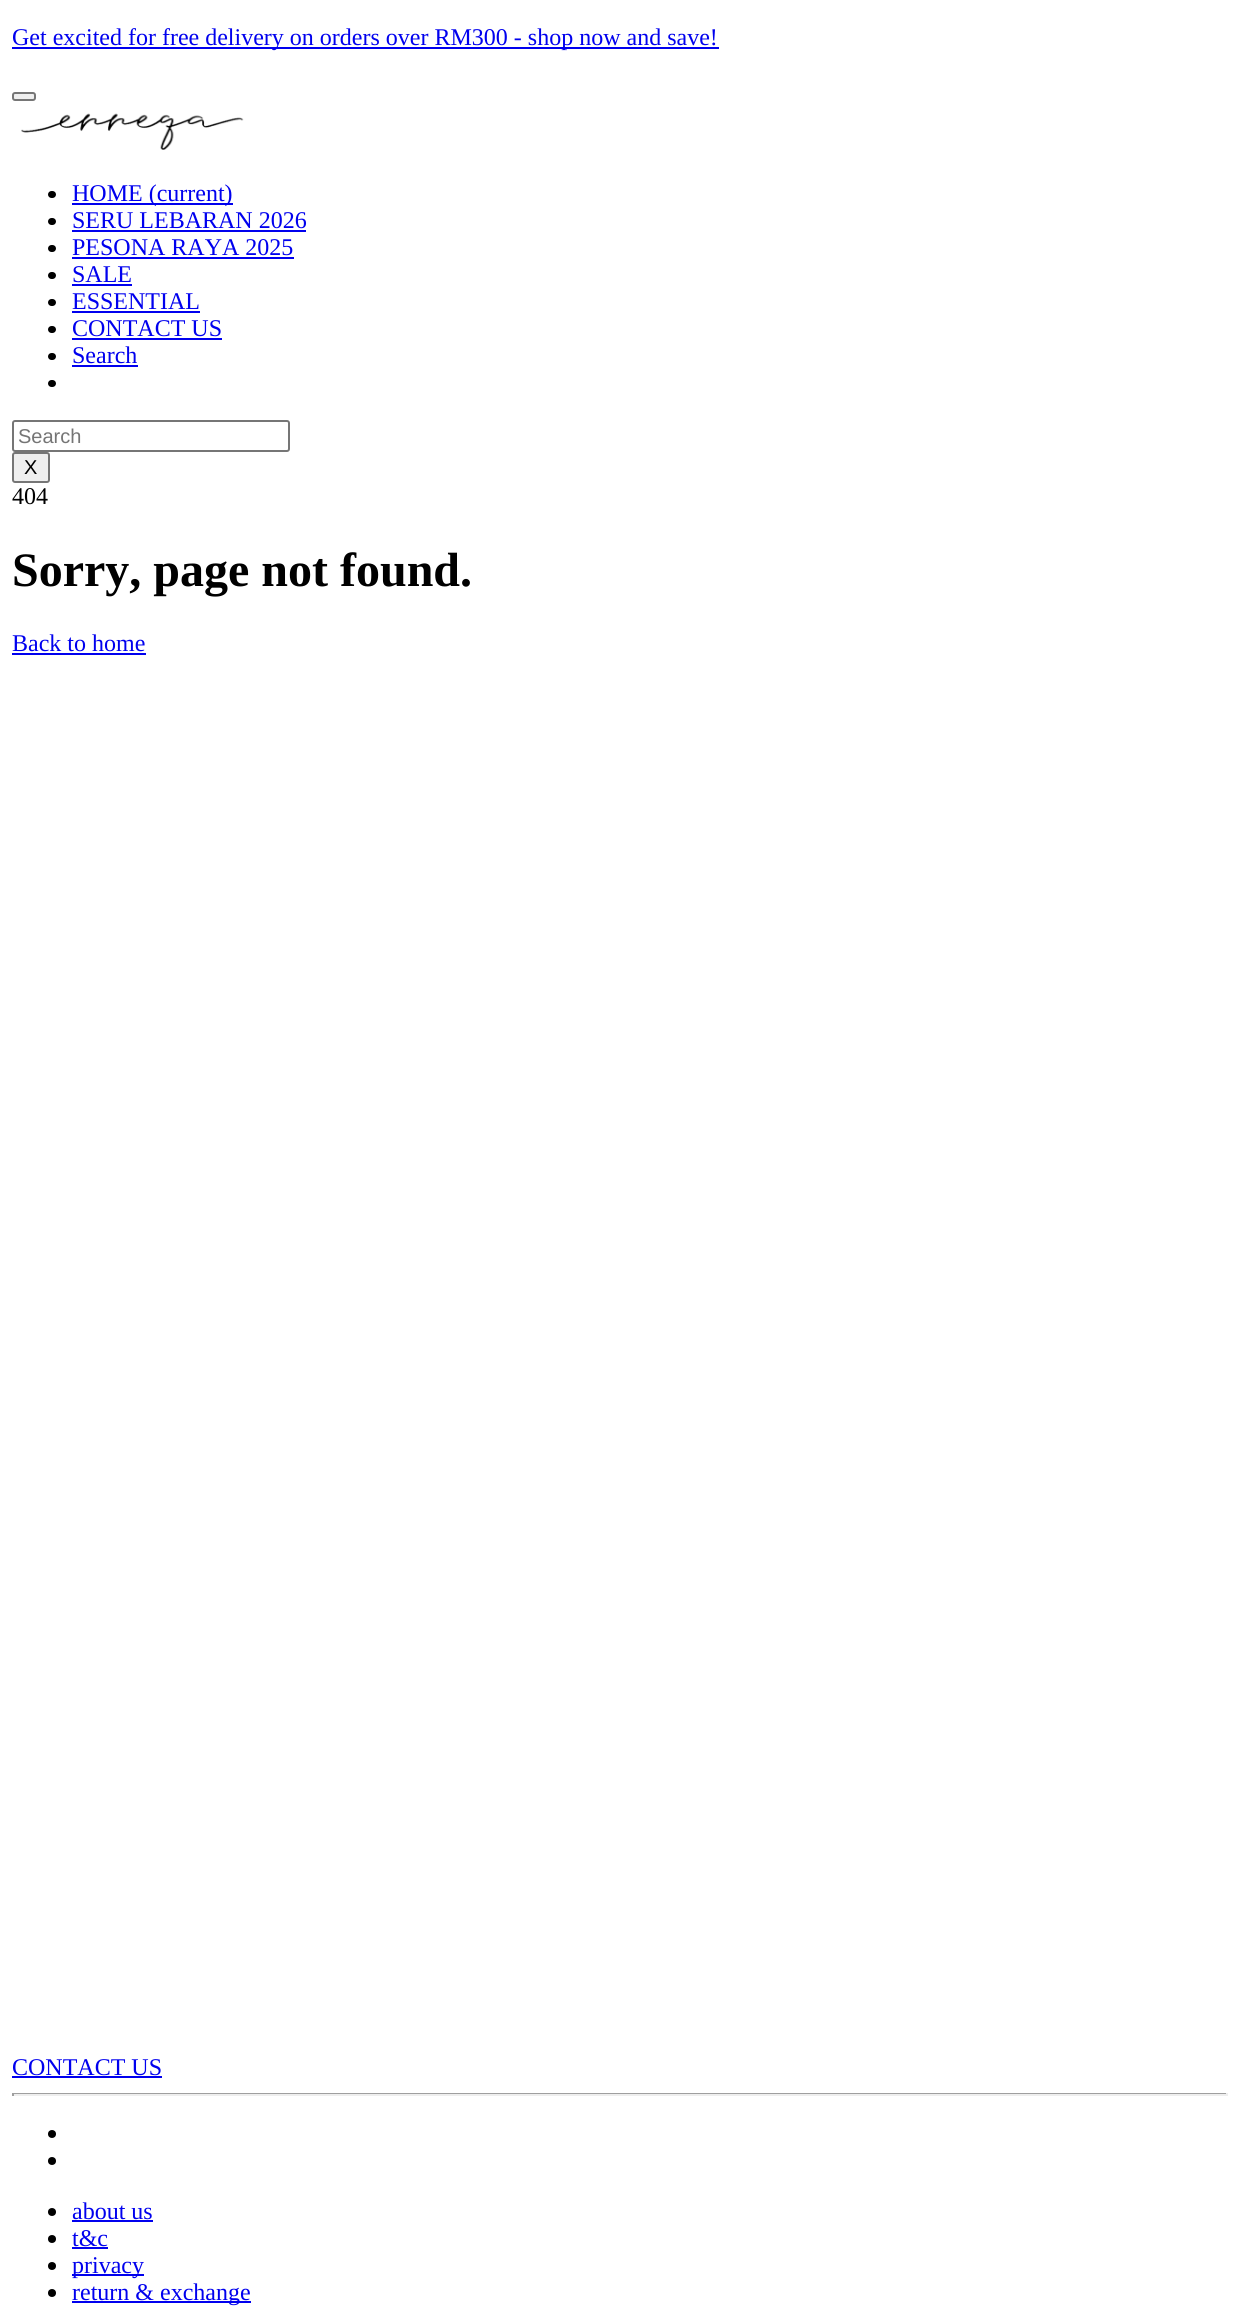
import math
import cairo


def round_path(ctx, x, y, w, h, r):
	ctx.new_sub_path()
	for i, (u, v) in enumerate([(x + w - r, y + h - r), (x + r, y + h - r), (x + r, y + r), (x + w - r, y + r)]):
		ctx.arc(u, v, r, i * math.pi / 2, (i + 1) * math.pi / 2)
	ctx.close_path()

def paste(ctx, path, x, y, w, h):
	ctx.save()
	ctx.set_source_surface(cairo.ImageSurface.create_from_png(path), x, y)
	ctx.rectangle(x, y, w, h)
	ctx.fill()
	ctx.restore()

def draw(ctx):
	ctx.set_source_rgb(1, 1, 1)
	ctx.paint()
	ctx.set_source_rgb(0, 0, 0.933)
	ctx.rectangle(12, 47, 707, 2)
	ctx.fill()
	ctx.select_font_face('Liberation Serif')
	ctx.set_font_size(24)
	ctx.move_to(12, 45)
	ctx.show_text('Get excited for free delivery on orders over RM300 - shop now and save!')
	ctx.set_source_rgb(0.937, 0.937, 0.937)
	round_path(ctx, 13, 93, 22, 7, 2)
	ctx.fill_preserve()
	ctx.set_source_rgb(0.463, 0.463, 0.463)
	ctx.stroke()
	paste(ctx, 'media/1.png', 21, 113, 223, 37)
	ctx.set_source_rgb(0, 0, 0)
	round_path(ctx, 48, 191, 8, 7, 3.5)
	ctx.fill()
	ctx.set_source_rgb(0, 0, 0.933)
	ctx.rectangle(72, 203, 161, 2)
	ctx.fill()
	ctx.move_to(72, 201)
	ctx.show_text('HOME (current)')
	ctx.set_source_rgb(0, 0, 0)
	round_path(ctx, 48, 218, 8, 7, 3.5)
	ctx.fill()
	ctx.set_source_rgb(0, 0, 0.933)
	ctx.move_to(72, 228)
	ctx.show_text('SERU LEBARAN 2026')
	ctx.rectangle(72, 230, 234, 2)
	ctx.fill()
	ctx.set_source_rgb(0, 0, 0)
	round_path(ctx, 48, 245, 8, 7, 3.5)
	ctx.fill()
	ctx.set_source_rgb(0, 0, 0.933)
	ctx.move_to(72, 255)
	ctx.show_text('PESONA RAYA 2025')
	ctx.rectangle(72, 257, 222, 2)
	ctx.fill()
	ctx.set_source_rgb(0, 0, 0)
	round_path(ctx, 48, 272, 8, 7, 3.5)
	ctx.fill()
	ctx.set_source_rgb(0, 0, 0.933)
	ctx.move_to(72, 282)
	ctx.show_text('SALE')
	ctx.rectangle(72, 284, 60, 2)
	ctx.fill()
	ctx.set_source_rgb(0, 0, 0)
	round_path(ctx, 48, 299, 8, 7, 3.5)
	ctx.fill()
	ctx.set_source_rgb(0, 0, 0.933)
	ctx.move_to(72, 309)
	ctx.show_text('ESSENTIAL')
	ctx.rectangle(72, 311, 128, 2)
	ctx.fill()
	ctx.set_source_rgb(0, 0, 0)
	round_path(ctx, 48, 326, 8, 7, 3.5)
	ctx.fill()
	ctx.set_source_rgb(0, 0, 0.933)
	ctx.move_to(72, 336)
	ctx.show_text('CONTACT US')
	ctx.rectangle(72, 338, 150, 2)
	ctx.fill()
	ctx.set_source_rgb(0, 0, 0)
	round_path(ctx, 48, 353, 8, 7, 3.5)
	ctx.fill()
	ctx.set_source_rgb(0, 0, 0.933)
	ctx.move_to(72, 363)
	ctx.show_text('Search')
	ctx.rectangle(72, 365, 66, 2)
	ctx.fill()
	ctx.set_source_rgb(0, 0, 0)
	round_path(ctx, 48, 380, 8, 7, 3.5)
	ctx.fill()
	round_path(ctx, 13, 421, 276, 30, 2)
	ctx.set_source_rgb(0.463, 0.463, 0.463)
	ctx.stroke()
	ctx.select_font_face('Liberation Sans')
	ctx.set_font_size(20)
	ctx.set_source_rgb(0.459, 0.459, 0.459)
	ctx.move_to(18, 443)
	ctx.show_text('Search')
	ctx.set_source_rgb(0.937, 0.937, 0.937)
	round_path(ctx, 13, 453, 36, 29, 2)
	ctx.fill_preserve()
	ctx.set_source_rgb(0.463, 0.463, 0.463)
	ctx.stroke()
	ctx.set_source_rgb(0, 0, 0)
	ctx.move_to(24, 474)
	ctx.show_text('X')
	ctx.select_font_face('Liberation Serif')
	ctx.set_font_size(24)
	ctx.move_to(12, 504)
	ctx.show_text('404')
	ctx.select_font_face('Liberation Serif', cairo.FONT_SLANT_NORMAL, cairo.FONT_WEIGHT_BOLD)
	ctx.set_font_size(48)
	ctx.move_to(12, 586)
	ctx.show_text('Sorry, page not found.')
	ctx.select_font_face('Liberation Serif')
	ctx.set_font_size(24)
	ctx.set_source_rgb(0, 0, 0.933)
	ctx.move_to(12, 651)
	ctx.show_text('Back to home')
	ctx.rectangle(12, 653, 134, 2)
	ctx.fill()
	ctx.move_to(12, 2075)
	ctx.show_text('CONTACT US')
	ctx.rectangle(12, 2076, 150, 2)
	ctx.fill()
	ctx.set_source_rgb(0.624, 0.624, 0.624)
	ctx.rectangle(12, 2093, 1215, 1)
	ctx.fill()
	ctx.set_source_rgb(0.933, 0.933, 0.933)
	ctx.rectangle(1226, 2093, 2, 3)
	ctx.rectangle(12, 2094, 1215, 2)
	ctx.fill()
	ctx.set_source_rgb(0.624, 0.624, 0.624)
	ctx.rectangle(12, 2093, 2, 3)
	ctx.fill()
	ctx.set_source_rgb(0, 0, 0)
	ctx.arc(52, 2134, 4, 0, 2 * math.pi)
	ctx.fill()
	ctx.arc(52, 2161, 4, 0, 2 * math.pi)
	ctx.fill()
	ctx.arc(52, 2212, 4, 0, 2 * math.pi)
	ctx.fill()
	ctx.set_source_rgb(0, 0, 0.933)
	ctx.move_to(72, 2219)
	ctx.show_text('about us')
	ctx.rectangle(72, 2220, 81, 2)
	ctx.fill()
	ctx.set_source_rgb(0, 0, 0)
	ctx.arc(52, 2239, 4, 0, 2 * math.pi)
	ctx.fill()
	ctx.set_source_rgb(0, 0, 0.933)
	ctx.move_to(72, 2246)
	ctx.show_text('t&c')
	ctx.rectangle(72, 2247, 36, 2)
	ctx.fill()
	ctx.set_source_rgb(0, 0, 0)
	ctx.arc(52, 2266, 4, 0, 2 * math.pi)
	ctx.fill()
	ctx.set_source_rgb(0, 0, 0.933)
	ctx.rectangle(72, 2274, 72, 2)
	ctx.fill()
	ctx.move_to(72, 2273)
	ctx.show_text('privacy')
	ctx.set_source_rgb(0, 0, 0)
	ctx.new_path()
	ctx.arc(52, 2293, 4, 0, 2 * math.pi)
	ctx.fill()
	ctx.set_source_rgb(0, 0, 0.933)
	ctx.rectangle(72, 2301, 179, 2)
	ctx.fill()
	ctx.move_to(72, 2300)
	ctx.show_text('return & exchange')


surface = cairo.ImageSurface(cairo.FORMAT_RGB24, 1238, 2310)
ctx = cairo.Context(surface)
options = cairo.FontOptions()
options.set_hint_metrics(cairo.HINT_METRICS_OFF)
options.set_hint_style(cairo.HINT_STYLE_NONE)
ctx.set_font_options(options)
ctx.set_miter_limit(4)
draw(ctx)
surface.write_to_png('image.png')
